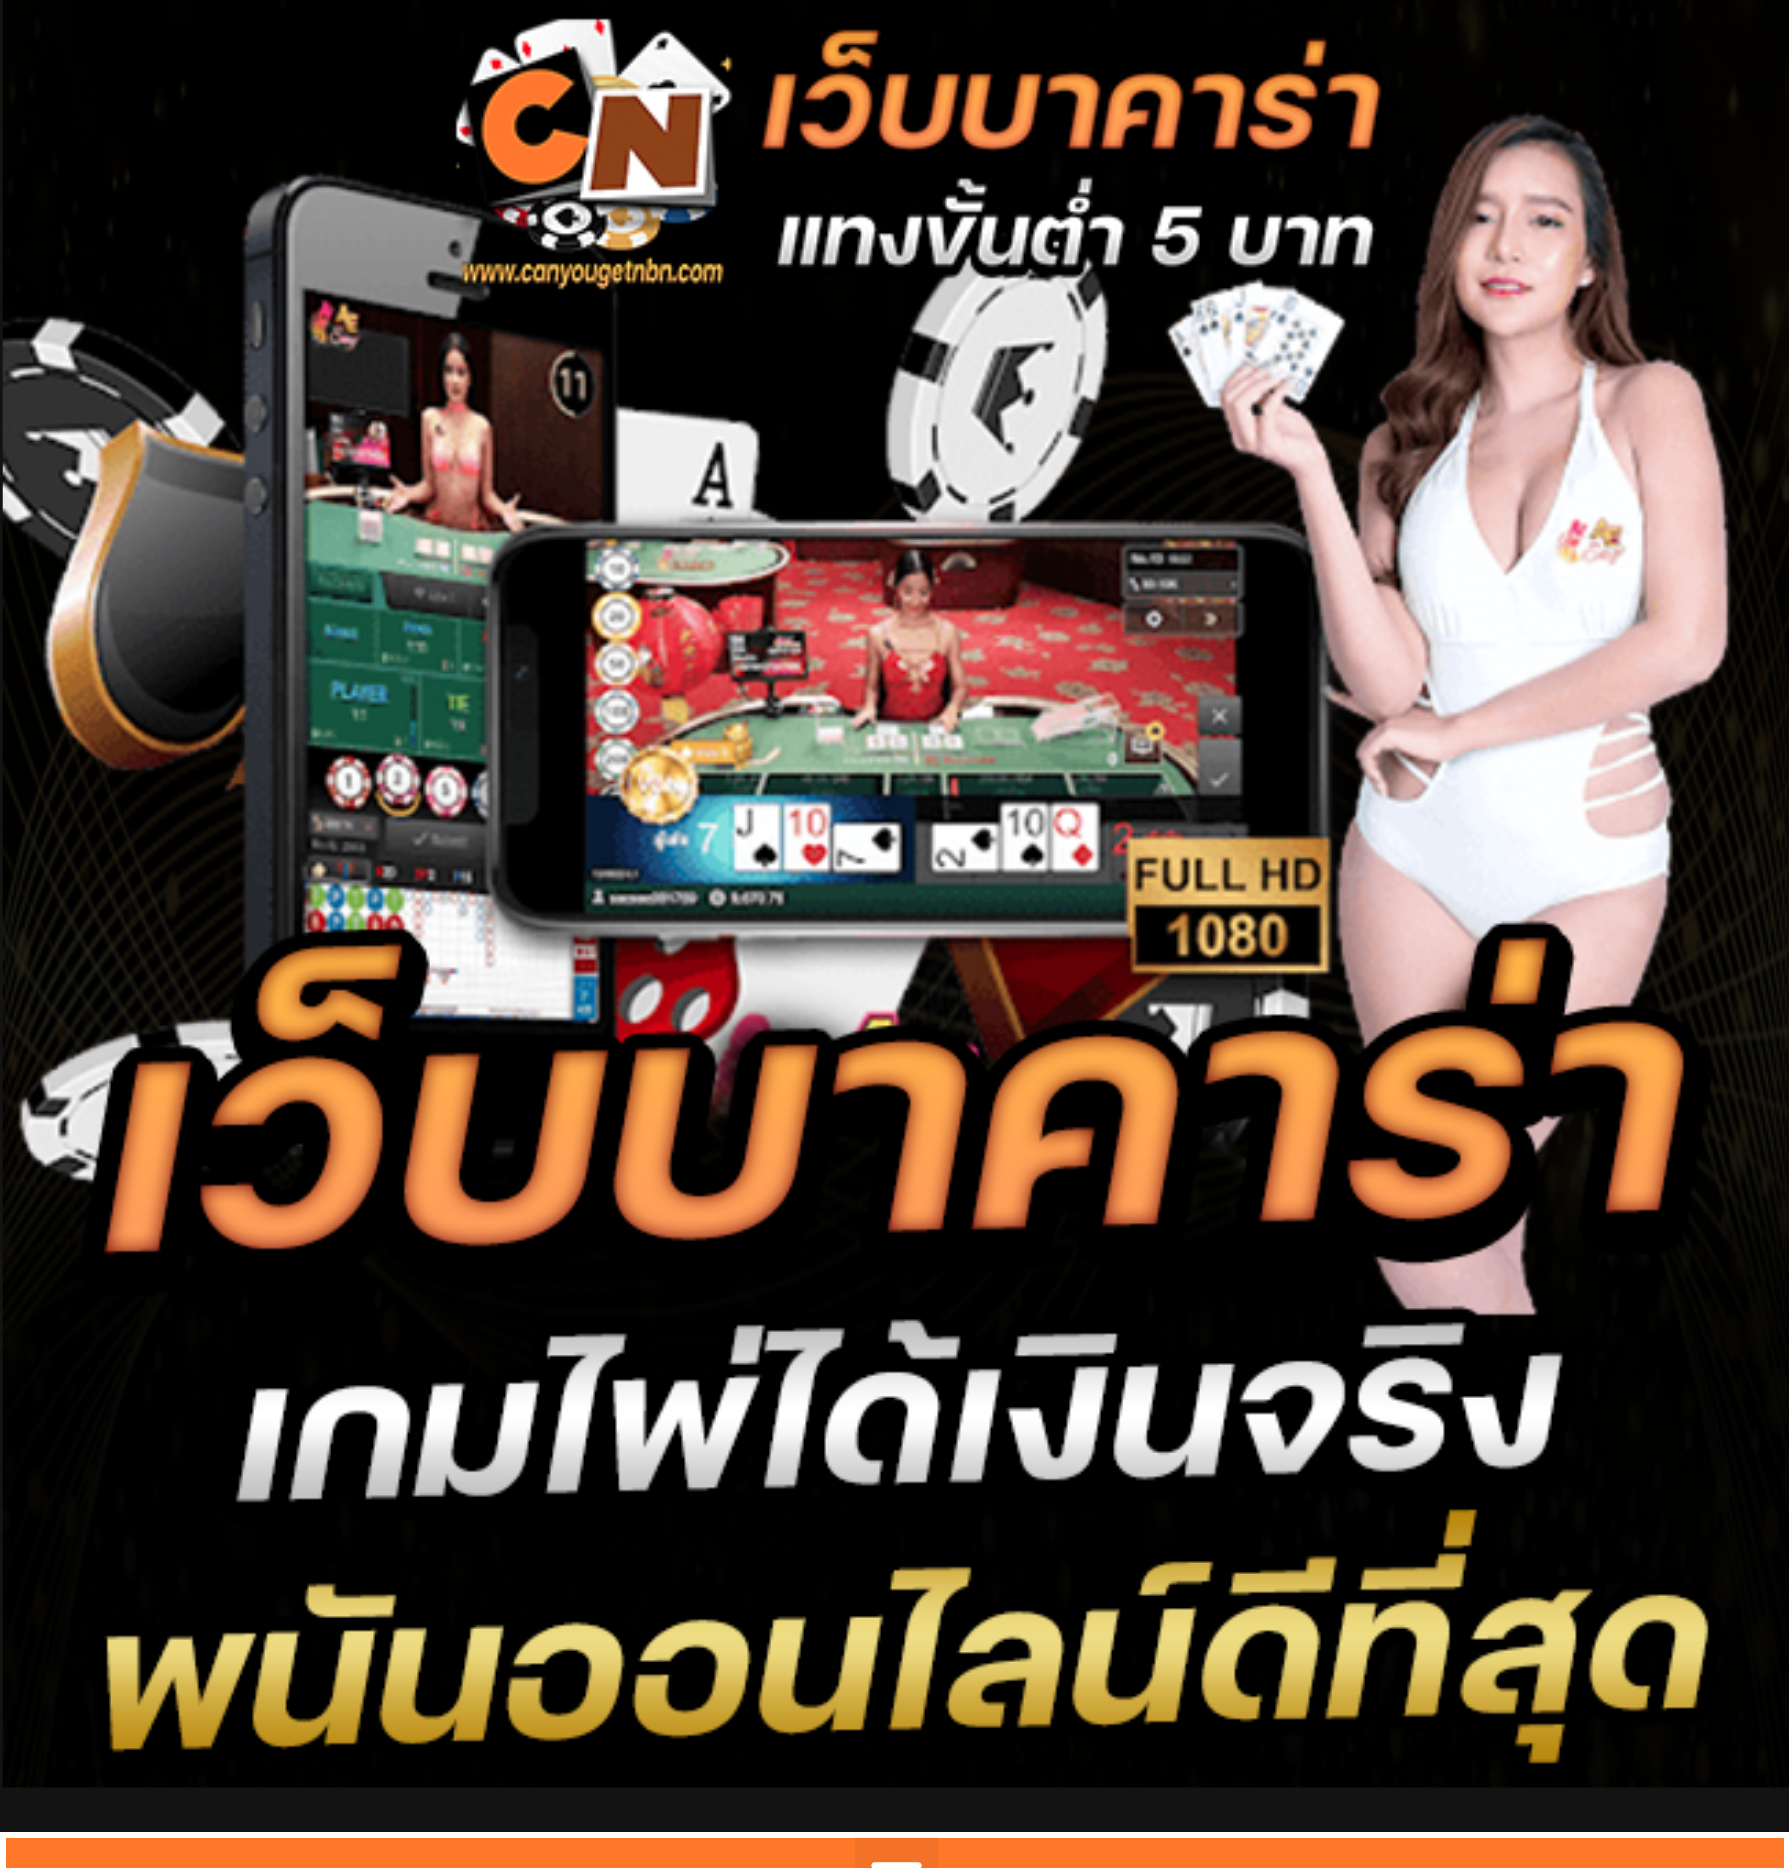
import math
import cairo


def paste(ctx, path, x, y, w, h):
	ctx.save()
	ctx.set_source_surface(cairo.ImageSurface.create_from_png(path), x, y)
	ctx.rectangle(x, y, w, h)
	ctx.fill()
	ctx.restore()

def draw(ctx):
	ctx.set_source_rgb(0.075, 0.075, 0.075)
	ctx.paint()
	paste(ctx, 'media/1.png', 2, 0, 1787, 1788)
	ctx.set_source_rgb(1, 0.471, 0.165)
	ctx.rectangle(3, 1835, 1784, 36)
	ctx.fill_preserve()
	ctx.set_source_rgb(1, 1, 1)
	ctx.set_line_width(6)
	ctx.stroke()
	ctx.set_source_rgba(0, 0, 0, 0.05)
	ctx.rectangle(855, 1837, 83, 31)
	ctx.fill()
	paste(ctx, 'media/2.png', 871, 1862, 51, 6)


surface = cairo.ImageSurface(cairo.FORMAT_RGB24, 1789, 1868)
ctx = cairo.Context(surface)
options = cairo.FontOptions()
options.set_hint_metrics(cairo.HINT_METRICS_OFF)
options.set_hint_style(cairo.HINT_STYLE_NONE)
ctx.set_font_options(options)
ctx.set_miter_limit(4)
draw(ctx)
surface.write_to_png('image.png')
